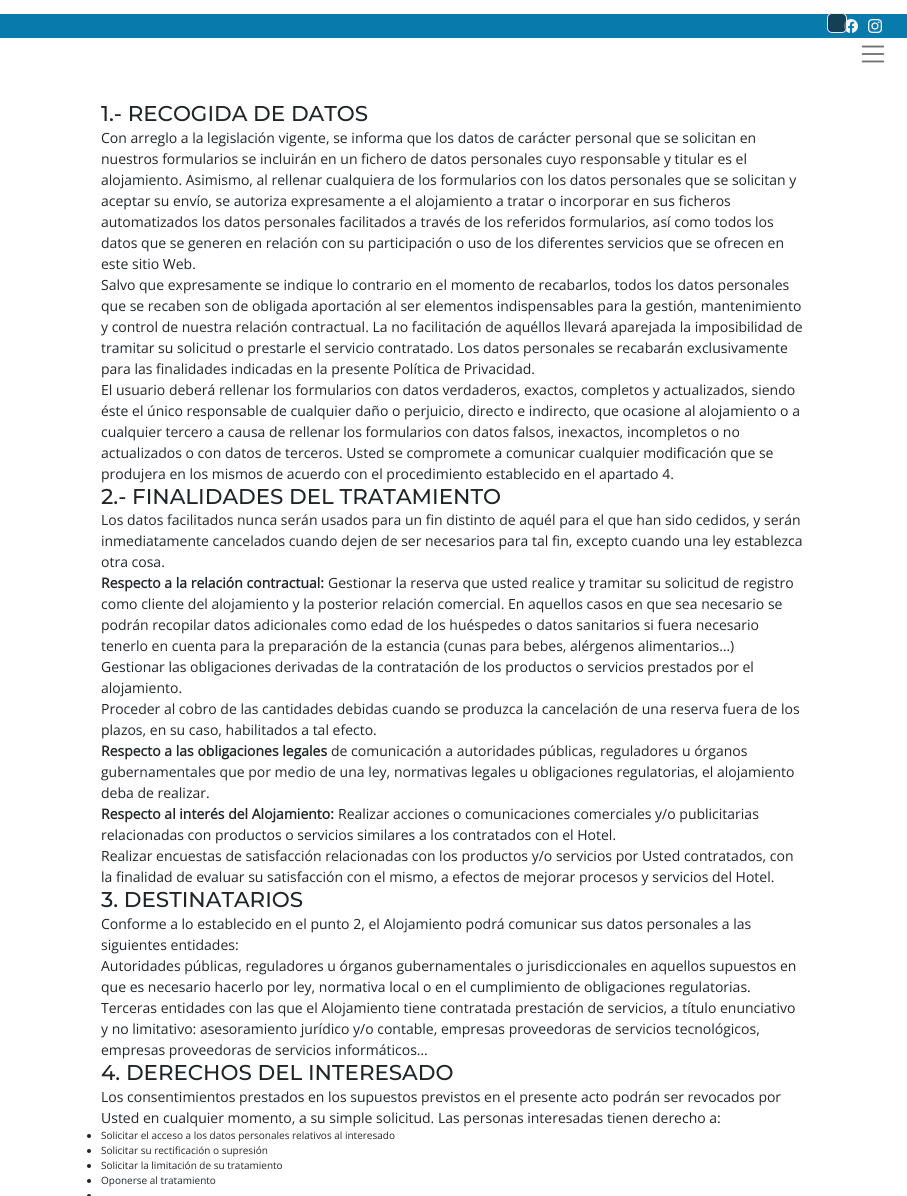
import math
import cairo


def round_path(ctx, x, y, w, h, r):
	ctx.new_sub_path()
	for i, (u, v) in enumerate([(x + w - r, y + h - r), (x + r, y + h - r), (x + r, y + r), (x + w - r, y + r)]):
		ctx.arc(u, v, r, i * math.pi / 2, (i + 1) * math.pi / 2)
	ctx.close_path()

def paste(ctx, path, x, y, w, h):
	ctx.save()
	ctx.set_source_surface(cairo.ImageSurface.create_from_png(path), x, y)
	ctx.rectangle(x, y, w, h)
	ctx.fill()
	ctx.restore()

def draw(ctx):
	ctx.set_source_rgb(1, 1, 1)
	ctx.paint()
	ctx.set_source_rgb(0.039, 0.478, 0.675)
	ctx.rectangle(0, 14, 907, 24)
	ctx.fill()
	paste(ctx, 'media/2.png', 844, 19, 14, 14)
	ctx.set_source_rgba(0.098, 0.098, 0.098, 0.6)
	round_path(ctx, 827, 13, 20, 20, 5)
	ctx.fill()
	round_path(ctx, 827.5, 13.5, 19, 19, 4.5)
	ctx.set_source_rgba(1, 1, 1, 0.9)
	ctx.set_line_width(1)
	ctx.stroke()
	paste(ctx, 'media/1.png', 861, 45, 24, 18)
	paste(ctx, 'media/3.png', 868, 19, 14, 14)
	ctx.select_font_face('Montserrat Medium')
	ctx.set_font_size(21.4)
	ctx.set_source_rgb(0.129, 0.145, 0.161)
	ctx.move_to(101, 121)
	ctx.show_text('1.- RECOGIDA DE DATOS')
	ctx.select_font_face('Open Sans')
	ctx.set_font_size(14)
	for x, y, s in [
		(101, 143, 'Con arreglo a la legislación vigente, se informa que los datos de carácter personal que se solicitan en'),
		(101, 164, 'nuestros formularios se incluirán en un fichero de datos personales cuyo responsable y titular es el'),
		(101, 185, 'alojamiento. Asimismo, al rellenar cualquiera de los formularios con los datos personales que se solicitan y'),
		(101, 206, 'aceptar su envío, se autoriza expresamente a el alojamiento a tratar o incorporar en sus ficheros'),
		(101, 227, 'automatizados los datos personales facilitados a través de los referidos formularios, así como todos los'),
		(101, 248, 'datos que se generen en relación con su participación o uso de los diferentes servicios que se ofrecen en'),
		(101, 269, 'este sitio Web.'),
		(101, 290, 'Salvo que expresamente se indique lo contrario en el momento de recabarlos, todos los datos personales'),
		(101, 311, 'que se recaben son de obligada aportación al ser elementos indispensables para la gestión, mantenimiento'),
		(101, 332, 'y control de nuestra relación contractual. La no facilitación de aquéllos llevará aparejada la imposibilidad de'),
		(101, 353, 'tramitar su solicitud o prestarle el servicio contratado. Los datos personales se recabarán exclusivamente'),
		(101, 374, 'para las finalidades indicadas en la presente Política de Privacidad.'),
		(101, 395, 'El usuario deberá rellenar los formularios con datos verdaderos, exactos, completos y actualizados, siendo'),
		(101, 416, 'éste el único responsable de cualquier daño o perjuicio, directo e indirecto, que ocasione al alojamiento o a'),
		(101, 437, 'cualquier tercero a causa de rellenar los formularios con datos falsos, inexactos, incompletos o no'),
		(101, 458, 'actualizados o con datos de terceros. Usted se compromete a comunicar cualquier modificación que se'),
		(101, 479, 'produjera en los mismos de acuerdo con el procedimiento establecido en el apartado 4.'),
	]:
		ctx.move_to(x, y)
		ctx.show_text(s)
	ctx.select_font_face('Montserrat Medium')
	ctx.set_font_size(21.4)
	ctx.move_to(101, 504)
	ctx.show_text('2.- FINALIDADES DEL TRATAMIENTO')
	ctx.select_font_face('Open Sans')
	ctx.set_font_size(14)
	for x, y, s in [
		(101, 525, 'Los datos facilitados nunca serán usados para un fin distinto de aquél para el que han sido cedidos, y serán'),
		(101, 546, 'inmediatamente cancelados cuando dejen de ser necesarios para tal fin, excepto cuando una ley establezca'),
		(101, 567, 'otra cosa.'),
	]:
		ctx.move_to(x, y)
		ctx.show_text(s)
	ctx.select_font_face('Open Sans', cairo.FONT_SLANT_NORMAL, cairo.FONT_WEIGHT_BOLD)
	ctx.move_to(101, 588)
	ctx.show_text('Respecto a la relación contractual:')
	ctx.select_font_face('Open Sans')
	for x, y, s in [
		(328, 588, 'Gestionar la reserva que usted realice y tramitar su solicitud de registro'),
		(101, 609, 'como cliente del alojamiento y la posterior relación comercial. En aquellos casos en que sea necesario se'),
		(101, 630, 'podrán recopilar datos adicionales como edad de los huéspedes o datos sanitarios si fuera necesario'),
		(101, 651, 'tenerlo en cuenta para la preparación de la estancia (cunas para bebes, alérgenos alimentarios…)'),
		(101, 672, 'Gestionar las obligaciones derivadas de la contratación de los productos o servicios prestados por el'),
		(101, 693, 'alojamiento.'),
		(101, 714, 'Proceder al cobro de las cantidades debidas cuando se produzca la cancelación de una reserva fuera de los'),
		(101, 735, 'plazos, en su caso, habilitados a tal efecto.'),
	]:
		ctx.move_to(x, y)
		ctx.show_text(s)
	ctx.select_font_face('Open Sans', cairo.FONT_SLANT_NORMAL, cairo.FONT_WEIGHT_BOLD)
	ctx.move_to(101, 756)
	ctx.show_text('Respecto a las obligaciones legales')
	ctx.select_font_face('Open Sans')
	for x, y, s in [
		(331, 756, 'de comunicación a autoridades públicas, reguladores u órganos'),
		(101, 777, 'gubernamentales que por medio de una ley, normativas legales u obligaciones regulatorias, el alojamiento'),
		(101, 798, 'deba de realizar.'),
	]:
		ctx.move_to(x, y)
		ctx.show_text(s)
	ctx.select_font_face('Open Sans', cairo.FONT_SLANT_NORMAL, cairo.FONT_WEIGHT_BOLD)
	ctx.move_to(101, 819)
	ctx.show_text('Respecto al interés del Alojamiento:')
	ctx.select_font_face('Open Sans')
	for x, y, s in [
		(338, 819, 'Realizar acciones o comunicaciones comerciales y/o publicitarias'),
		(101, 840, 'relacionadas con productos o servicios similares a los contratados con el Hotel.'),
		(101, 861, 'Realizar encuestas de satisfacción relacionadas con los productos y/o servicios por Usted contratados, con'),
		(101, 882, 'la finalidad de evaluar su satisfacción con el mismo, a efectos de mejorar procesos y servicios del Hotel.'),
	]:
		ctx.move_to(x, y)
		ctx.show_text(s)
	ctx.select_font_face('Montserrat Medium')
	ctx.set_font_size(21.4)
	ctx.move_to(101, 907)
	ctx.show_text('3. DESTINATARIOS')
	ctx.select_font_face('Open Sans')
	ctx.set_font_size(14)
	for x, y, s in [
		(101, 929, 'Conforme a lo establecido en el punto 2, el Alojamiento podrá comunicar sus datos personales a las'),
		(101, 950, 'siguientes entidades:'),
		(101, 971, 'Autoridades públicas, reguladores u órganos gubernamentales o jurisdiccionales en aquellos supuestos en'),
		(101, 992, 'que es necesario hacerlo por ley, normativa local o en el cumplimiento de obligaciones regulatorias.'),
		(101, 1013, 'Terceras entidades con las que el Alojamiento tiene contratada prestación de servicios, a título enunciativo'),
		(101, 1034, 'y no limitativo: asesoramiento jurídico y/o contable, empresas proveedoras de servicios tecnológicos,'),
		(101, 1055, 'empresas proveedoras de servicios informáticos…'),
	]:
		ctx.move_to(x, y)
		ctx.show_text(s)
	ctx.select_font_face('Montserrat Medium')
	ctx.set_font_size(21.4)
	ctx.move_to(101, 1080)
	ctx.show_text('4. DERECHOS DEL INTERESADO')
	ctx.select_font_face('Open Sans')
	ctx.set_font_size(14)
	ctx.move_to(101, 1102)
	ctx.show_text('Los consentimientos prestados en los supuestos previstos en el presente acto podrán ser revocados por')
	ctx.move_to(101, 1123)
	ctx.show_text('Usted en cualquier momento, a su simple solicitud. Las personas interesadas tienen derecho a:')
	ctx.new_path()
	ctx.arc(89, 1136, 2, 0, 2 * math.pi)
	ctx.fill()
	ctx.set_font_size(10)
	ctx.move_to(101, 1139)
	ctx.show_text('Solicitar el acceso a los datos personales relativos al interesado')
	ctx.new_path()
	ctx.arc(89, 1151, 2, 0, 2 * math.pi)
	ctx.fill()
	ctx.move_to(101, 1154)
	ctx.show_text('Solicitar su rectificación o supresión')
	ctx.new_path()
	ctx.arc(89, 1166, 2, 0, 2 * math.pi)
	ctx.fill()
	ctx.move_to(101, 1169)
	ctx.show_text('Solicitar la limitación de su tratamiento')
	ctx.new_path()
	ctx.arc(89, 1181, 2, 0, 2 * math.pi)
	ctx.fill()
	ctx.move_to(101, 1184)
	ctx.show_text('Oponerse al tratamiento')
	ctx.new_path()
	ctx.arc(89, 1196, 2, 0, 2 * math.pi)
	ctx.fill()


surface = cairo.ImageSurface(cairo.FORMAT_RGB24, 907, 1196)
ctx = cairo.Context(surface)
options = cairo.FontOptions()
options.set_hint_metrics(cairo.HINT_METRICS_OFF)
options.set_hint_style(cairo.HINT_STYLE_NONE)
ctx.set_font_options(options)
ctx.set_miter_limit(4)
draw(ctx)
surface.write_to_png('image.png')
